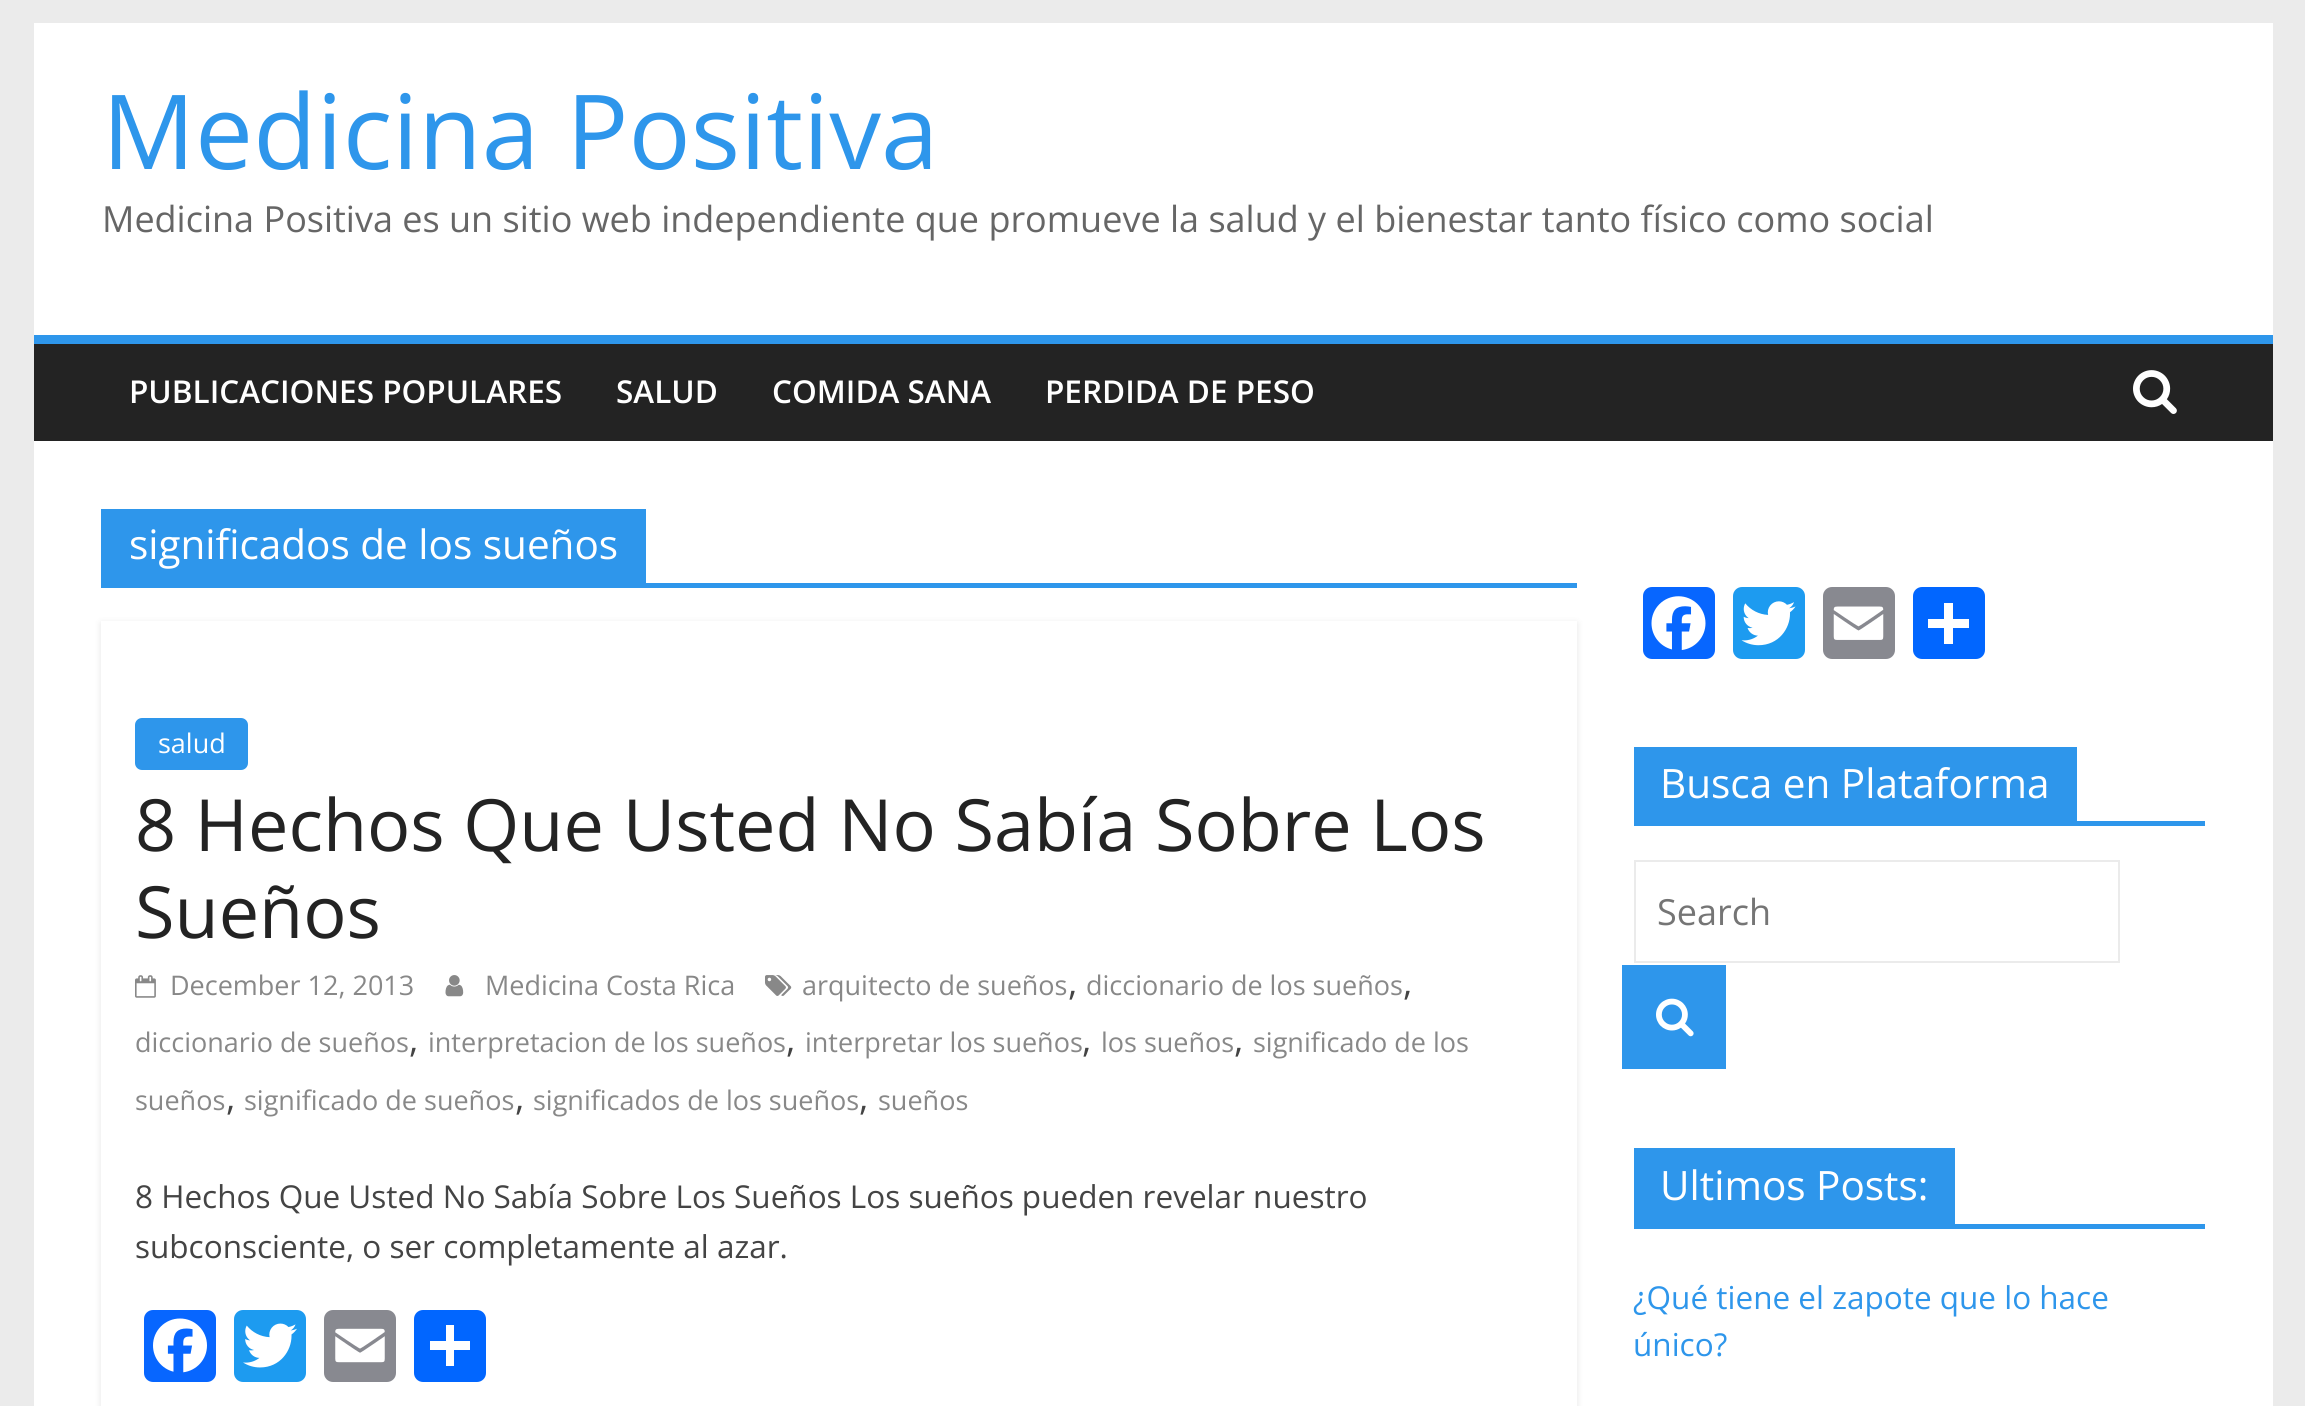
import math
import cairo


def round_path(ctx, x, y, w, h, r):
	ctx.new_sub_path()
	for i, (u, v) in enumerate([(x + w - r, y + h - r), (x + r, y + h - r), (x + r, y + r), (x + w - r, y + r)]):
		ctx.arc(u, v, r, i * math.pi / 2, (i + 1) * math.pi / 2)
	ctx.close_path()

def blur_box(ctx, x, y, w, h, r, blur, alpha):
	ctx.push_group_with_content(cairo.CONTENT_ALPHA)
	ctx.set_operator(cairo.OPERATOR_SOURCE)
	for i in range(15, -16, -2):
		e = blur * i / 6
		if min(w, h) + 2 * e > 0:
			ctx.set_source_rgba(0, 0, 0, alpha * math.erfc((i - 1) / 8.5) / 2)
			round_path(ctx, x - e, y - e, w + 2 * e, h + 2 * e, max(0, min(r + e + blur * .6, min(w, h) / 2 + e)))
			ctx.fill()
	ctx.mask(ctx.pop_group())

def paste(ctx, path, x, y, w, h):
	ctx.save()
	ctx.set_source_surface(cairo.ImageSurface.create_from_png(path), x, y)
	ctx.rectangle(x, y, w, h)
	ctx.fill()
	ctx.restore()

def draw(ctx):
	ctx.set_source_rgb(0.918, 0.918, 0.918)
	ctx.paint()
	ctx.set_source_rgb(1, 1, 1)
	ctx.rectangle(34, 23, 2239, 312)
	ctx.fill()
	ctx.select_font_face('Open Sans')
	ctx.set_font_size(103.5)
	ctx.set_source_rgb(0.18, 0.588, 0.918)
	ctx.move_to(102, 169)
	ctx.show_text('Medicina Positiva')
	ctx.set_font_size(36)
	ctx.set_source_rgb(0.4, 0.4, 0.4)
	ctx.move_to(102, 232)
	ctx.show_text('Medicina Positiva es un sitio web independiente que promueve la salud y el bienestar tanto físico como social')
	ctx.set_source_rgb(0.137, 0.137, 0.137)
	ctx.rectangle(34, 344, 2239, 97)
	ctx.fill()
	ctx.set_source_rgb(0.18, 0.588, 0.918)
	ctx.rectangle(34, 335, 2239, 9)
	ctx.fill()
	ctx.select_font_face('Open Sans SemiBold')
	ctx.set_font_size(31.5)
	ctx.set_source_rgb(1, 1, 1)
	for x, y, s in [
		(129, 403, 'PUBLICACIONES POPULARES'),
		(616, 403, 'SALUD'),
		(772, 403, 'COMIDA SANA'),
		(1045, 403, 'PERDIDA DE PESO'),
	]:
		ctx.move_to(x, y)
		ctx.show_text(s)
	paste(ctx, 'media/1.png', 2133, 370, 44, 44)
	ctx.rectangle(34, 441, 2239, 965)
	ctx.fill()
	ctx.set_source_rgb(0.18, 0.588, 0.918)
	ctx.rectangle(101, 583, 1476, 5)
	ctx.rectangle(101, 509, 545, 74)
	ctx.fill()
	ctx.select_font_face('Open Sans')
	ctx.set_font_size(40.5)
	ctx.set_source_rgb(1, 1, 1)
	ctx.move_to(129, 559)
	ctx.show_text('significados de los sueños')
	ctx.save()
	ctx.set_fill_rule(cairo.FILL_RULE_EVEN_ODD)
	ctx.new_path()
	ctx.move_to(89, 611)
	ctx.line_to(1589, 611)
	ctx.line_to(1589, 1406)
	ctx.line_to(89, 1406)
	ctx.close_path()
	ctx.move_to(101, 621)
	ctx.line_to(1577, 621)
	ctx.line_to(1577, 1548)
	ctx.line_to(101, 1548)
	ctx.close_path()
	ctx.clip()
	ctx.set_source_rgb(0, 0, 0)
	blur_box(ctx, 101, 623, 1476, 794, 0, 3.5, 0.1)
	ctx.restore()
	ctx.set_source_rgb(0.18, 0.588, 0.918)
	round_path(ctx, 135, 718, 113, 52, 7)
	ctx.fill()
	ctx.set_font_size(27)
	ctx.set_source_rgb(1, 1, 1)
	ctx.move_to(158, 753)
	ctx.show_text('salud')
	ctx.set_font_size(72)
	ctx.set_source_rgb(0.137, 0.137, 0.137)
	ctx.move_to(135, 851)
	ctx.show_text('8 Hechos Que Usted No Sabía Sobre Los')
	ctx.move_to(135, 938)
	ctx.show_text('Sueños')
	paste(ctx, 'media/2.png', 765, 975, 27, 21)
	ctx.set_font_size(27)
	ctx.set_source_rgb(0.533, 0.533, 0.533)
	ctx.move_to(802, 995)
	ctx.show_text('arquitecto de sueños')
	ctx.set_font_size(36)
	ctx.set_source_rgb(0.267, 0.267, 0.267)
	ctx.move_to(1068, 995)
	ctx.show_text(',')
	ctx.set_font_size(27)
	ctx.set_source_rgb(0.533, 0.533, 0.533)
	ctx.move_to(1086, 995)
	ctx.show_text('diccionario de los sueños')
	ctx.set_font_size(36)
	ctx.set_source_rgb(0.267, 0.267, 0.267)
	ctx.move_to(1403, 995)
	ctx.show_text(',')
	ctx.set_font_size(27)
	ctx.set_source_rgb(0.533, 0.533, 0.533)
	ctx.move_to(135, 1052)
	ctx.show_text('diccionario de sueños')
	ctx.set_font_size(36)
	ctx.set_source_rgb(0.267, 0.267, 0.267)
	ctx.move_to(409, 1052)
	ctx.show_text(',')
	ctx.set_font_size(27)
	ctx.set_source_rgb(0.533, 0.533, 0.533)
	ctx.move_to(428, 1052)
	ctx.show_text('interpretacion de los sueños')
	ctx.set_font_size(36)
	ctx.set_source_rgb(0.267, 0.267, 0.267)
	ctx.move_to(786, 1052)
	ctx.show_text(',')
	ctx.set_font_size(27)
	ctx.set_source_rgb(0.533, 0.533, 0.533)
	ctx.move_to(805, 1052)
	ctx.show_text('interpretar los sueños')
	ctx.set_font_size(36)
	ctx.set_source_rgb(0.267, 0.267, 0.267)
	ctx.move_to(1082, 1052)
	ctx.show_text(',')
	ctx.set_font_size(27)
	ctx.set_source_rgb(0.533, 0.533, 0.533)
	ctx.move_to(1101, 1052)
	ctx.show_text('los sueños')
	ctx.set_font_size(36)
	ctx.set_source_rgb(0.267, 0.267, 0.267)
	ctx.move_to(1234, 1052)
	ctx.show_text(',')
	ctx.set_font_size(27)
	ctx.set_source_rgb(0.533, 0.533, 0.533)
	ctx.move_to(1253, 1052)
	ctx.show_text('significado de los')
	ctx.move_to(135, 1110)
	ctx.show_text('sueños')
	ctx.set_font_size(36)
	ctx.set_source_rgb(0.267, 0.267, 0.267)
	ctx.move_to(226, 1110)
	ctx.show_text(',')
	ctx.set_font_size(27)
	ctx.set_source_rgb(0.533, 0.533, 0.533)
	ctx.move_to(244, 1110)
	ctx.show_text('significado de sueños')
	ctx.set_font_size(36)
	ctx.set_source_rgb(0.267, 0.267, 0.267)
	ctx.move_to(515, 1110)
	ctx.show_text(',')
	ctx.set_font_size(27)
	ctx.set_source_rgb(0.533, 0.533, 0.533)
	ctx.move_to(533, 1110)
	ctx.show_text('significados de los sueños')
	ctx.set_font_size(36)
	ctx.set_source_rgb(0.267, 0.267, 0.267)
	ctx.move_to(859, 1110)
	ctx.show_text(',')
	ctx.set_font_size(27)
	ctx.set_source_rgb(0.533, 0.533, 0.533)
	ctx.move_to(878, 1110)
	ctx.show_text('sueños')
	paste(ctx, 'media/3.png', 135, 975, 21, 23)
	ctx.move_to(170, 995)
	ctx.show_text('December 12, 2013')
	paste(ctx, 'media/4.png', 445, 975, 19, 22)
	ctx.move_to(485, 995)
	ctx.show_text('Medicina Costa Rica')
	ctx.set_font_size(31.5)
	ctx.set_source_rgb(0.267, 0.267, 0.267)
	ctx.move_to(135, 1208)
	ctx.show_text('8 Hechos Que Usted No Sabía Sobre Los Sueños Los sueños pueden revelar nuestro')
	ctx.move_to(135, 1258)
	ctx.show_text('subconsciente, o ser completamente al azar.')
	ctx.set_source_rgb(0.031, 0.4, 1)
	round_path(ctx, 144, 1310, 72, 72, 9)
	ctx.fill()
	paste(ctx, 'media/5.png', 153, 1318, 54, 55)
	ctx.set_source_rgb(0.114, 0.608, 0.941)
	round_path(ctx, 234, 1310, 72, 72, 9)
	ctx.fill()
	paste(ctx, 'media/6.png', 243, 1323, 54, 45)
	ctx.set_source_rgb(0.533, 0.537, 0.565)
	round_path(ctx, 324, 1310, 72, 72, 9)
	ctx.fill()
	paste(ctx, 'media/7.png', 335, 1328, 50, 35)
	ctx.set_source_rgb(0.004, 0.4, 1)
	round_path(ctx, 414, 1310, 72, 72, 9)
	ctx.fill()
	ctx.set_source_rgb(1, 1, 1)
	ctx.rectangle(446, 1325, 8, 41)
	ctx.fill()
	ctx.rectangle(430, 1341, 40, 9)
	ctx.fill()
	ctx.set_source_rgb(0.031, 0.4, 1)
	round_path(ctx, 1643, 587, 72, 72, 9)
	ctx.fill()
	paste(ctx, 'media/8.png', 1651, 596, 55, 54)
	ctx.set_source_rgb(0.114, 0.608, 0.941)
	round_path(ctx, 1733, 587, 72, 72, 9)
	ctx.fill()
	paste(ctx, 'media/9.png', 1741, 601, 55, 45)
	ctx.set_source_rgb(0.533, 0.537, 0.565)
	round_path(ctx, 1823, 587, 72, 72, 9)
	ctx.fill()
	paste(ctx, 'media/10.png', 1833, 606, 51, 34)
	ctx.set_source_rgb(0.004, 0.4, 1)
	round_path(ctx, 1913, 587, 72, 72, 9)
	ctx.fill()
	ctx.set_source_rgb(1, 1, 1)
	ctx.rectangle(1944, 603, 9, 41)
	ctx.rectangle(1928, 619, 41, 9)
	ctx.fill()
	ctx.set_source_rgb(0.18, 0.588, 0.918)
	ctx.rectangle(1634, 821, 571, 5)
	ctx.rectangle(1634, 747, 443, 74)
	ctx.fill()
	ctx.set_font_size(40.5)
	ctx.set_source_rgb(1, 1, 1)
	ctx.move_to(1660, 798)
	ctx.show_text('Busca en Plataforma')
	ctx.rectangle(1635, 861, 484, 101)
	ctx.set_source_rgb(0.918, 0.918, 0.918)
	ctx.stroke()
	ctx.set_font_size(36)
	ctx.set_source_rgb(0.459, 0.459, 0.459)
	ctx.move_to(1657, 925)
	ctx.show_text('Search')
	ctx.set_source_rgb(0.18, 0.588, 0.918)
	ctx.rectangle(1622, 965, 104, 104)
	ctx.fill()
	paste(ctx, 'media/11.png', 1656, 998, 38, 39)
	ctx.rectangle(1634, 1224, 571, 5)
	ctx.fill()
	ctx.rectangle(1634, 1148, 321, 76)
	ctx.fill()
	ctx.set_font_size(40.5)
	ctx.set_source_rgb(1, 1, 1)
	ctx.move_to(1660, 1200)
	ctx.show_text('Ultimos Posts:')
	ctx.set_font_size(31.5)
	ctx.set_source_rgb(0.18, 0.588, 0.918)
	ctx.move_to(1633, 1309)
	ctx.show_text('¿Qué tiene el zapote que lo hace')
	ctx.move_to(1633, 1356)
	ctx.show_text('único?')


surface = cairo.ImageSurface(cairo.FORMAT_RGB24, 2305, 1406)
ctx = cairo.Context(surface)
options = cairo.FontOptions()
options.set_hint_metrics(cairo.HINT_METRICS_OFF)
options.set_hint_style(cairo.HINT_STYLE_NONE)
ctx.set_font_options(options)
ctx.set_miter_limit(4)
draw(ctx)
surface.write_to_png('image.png')
